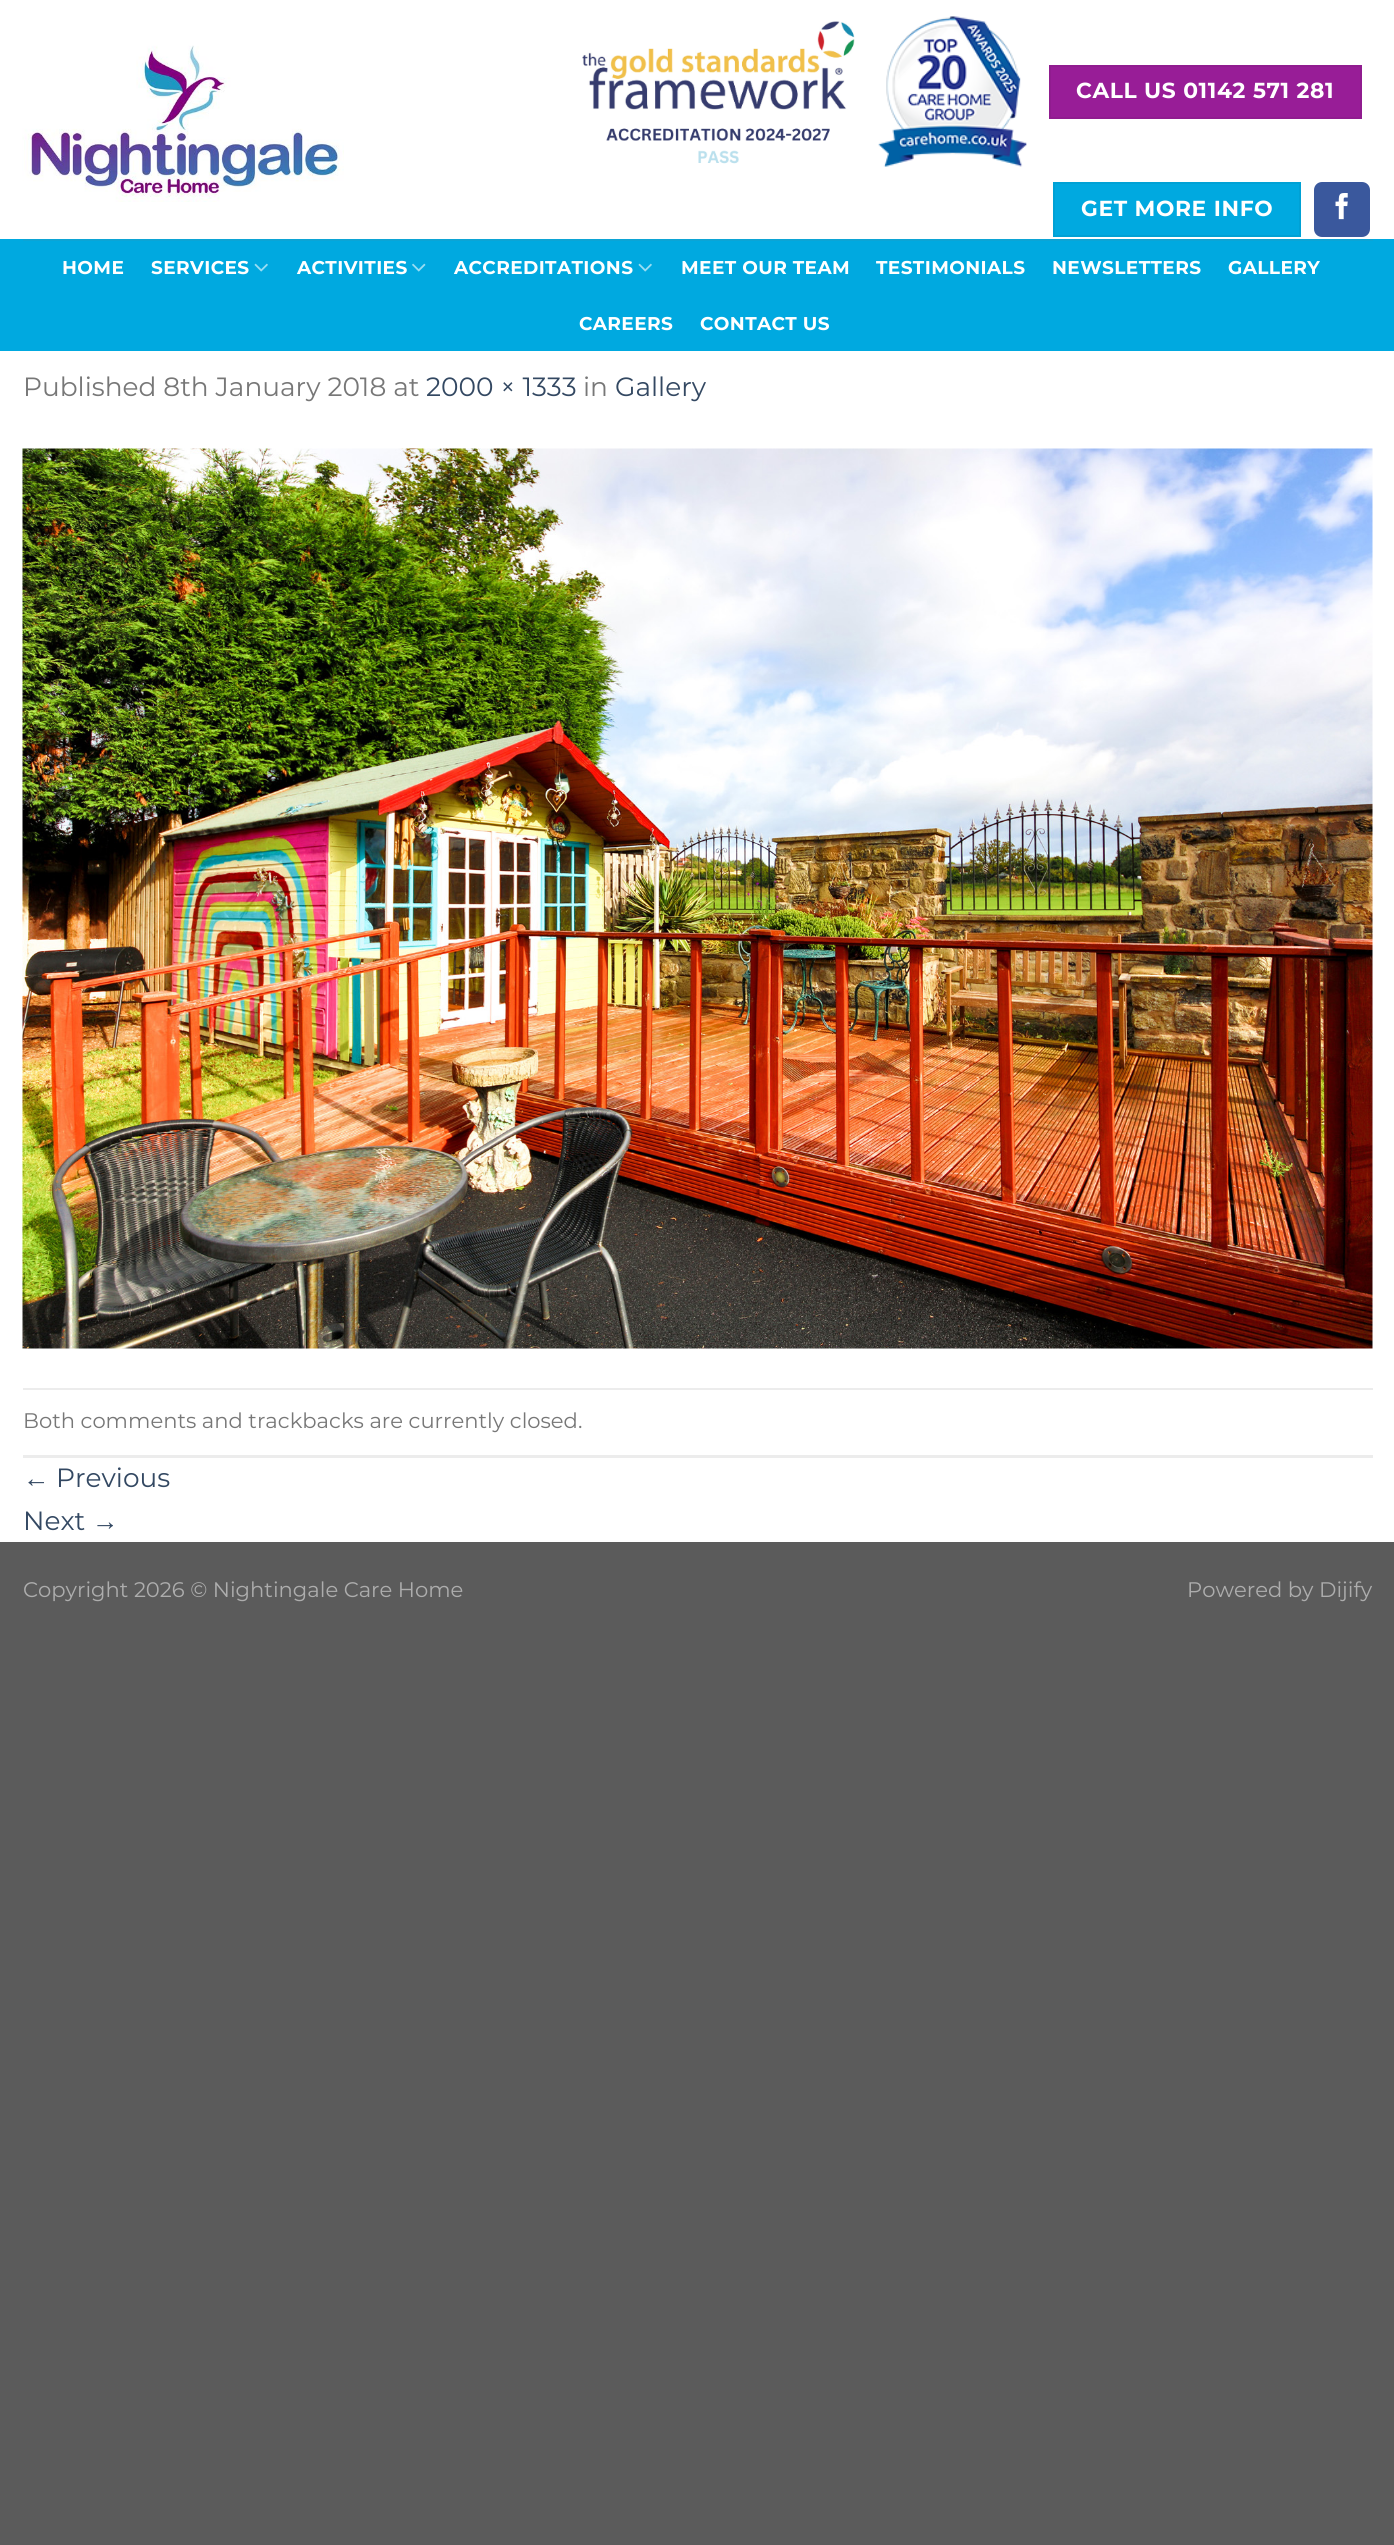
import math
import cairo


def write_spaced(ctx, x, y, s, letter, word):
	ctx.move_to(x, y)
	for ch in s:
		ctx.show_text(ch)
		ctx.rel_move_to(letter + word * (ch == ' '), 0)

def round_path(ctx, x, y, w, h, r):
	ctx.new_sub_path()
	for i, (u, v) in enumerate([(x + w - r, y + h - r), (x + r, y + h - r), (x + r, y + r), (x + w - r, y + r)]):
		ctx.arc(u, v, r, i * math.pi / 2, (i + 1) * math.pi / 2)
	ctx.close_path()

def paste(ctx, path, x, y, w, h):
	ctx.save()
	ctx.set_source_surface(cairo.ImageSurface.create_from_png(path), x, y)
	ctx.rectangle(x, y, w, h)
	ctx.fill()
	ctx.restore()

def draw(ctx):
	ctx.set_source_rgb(0.357, 0.357, 0.357)
	ctx.paint()
	ctx.set_source_rgb(1, 1, 1)
	ctx.rectangle(0, 0, 1394, 1542)
	ctx.fill()
	paste(ctx, 'media/1.png', 22, 45, 322, 157)
	paste(ctx, 'media/2.png', 582, 21, 273, 143)
	paste(ctx, 'media/3.png', 878, 16, 149, 151)
	ctx.set_source_rgb(0.596, 0.114, 0.592)
	ctx.rectangle(1050, 66, 311, 52)
	ctx.fill_preserve()
	ctx.set_source_rgb(0.565, 0.11, 0.561)
	ctx.stroke()
	ctx.select_font_face('Montserrat', cairo.FONT_SLANT_NORMAL, cairo.FONT_WEIGHT_BOLD)
	ctx.set_font_size(21.75)
	ctx.set_source_rgb(1, 1, 1)
	write_spaced(ctx, 1076, 98, 'CALL US 01142 571 281', 0.65, 0)
	ctx.set_source_rgb(0, 0.663, 0.878)
	ctx.rectangle(1054, 183, 246, 53)
	ctx.fill_preserve()
	ctx.set_source_rgb(0, 0.631, 0.835)
	ctx.stroke()
	ctx.set_source_rgb(1, 1, 1)
	write_spaced(ctx, 1081, 216, 'GET MORE INFO', 0.65, 0)
	ctx.set_source_rgb(0.227, 0.345, 0.616)
	round_path(ctx, 1315, 183, 54, 53, 7)
	ctx.fill_preserve()
	ctx.stroke()
	paste(ctx, 'media/4.png', 1335, 193, 13, 27)
	ctx.set_source_rgb(0, 0.663, 0.878)
	ctx.rectangle(0, 239, 1394, 112)
	ctx.fill()
	ctx.set_source_rgb(0.047, 0.643, 0.835)
	ctx.rectangle(23, 239, 1350, 2)
	ctx.fill()
	ctx.set_font_size(18.5)
	ctx.set_source_rgb(1, 1, 1)
	write_spaced(ctx, 62, 274, 'HOME', 0.4, 0)
	write_spaced(ctx, 151, 274, 'SERVICES', 0.4, 0)
	paste(ctx, 'media/5.png', 254, 263, 14, 9)
	write_spaced(ctx, 297, 274, 'ACTIVITIES', 0.4, 0)
	paste(ctx, 'media/6.png', 412, 263, 14, 9)
	write_spaced(ctx, 454, 274, 'ACCREDITATIONS', 0.4, 0)
	paste(ctx, 'media/5.png', 638, 263, 14, 9)
	for x, y, s in [
		(681, 274, 'MEET OUR TEAM'),
		(876, 274, 'TESTIMONIALS'),
		(1052, 274, 'NEWSLETTERS'),
		(1228, 274, 'GALLERY'),
		(579, 330, 'CAREERS'),
		(700, 330, 'CONTACT US'),
	]:
		write_spaced(ctx, x, y, s, 0.4, 0)
	ctx.select_font_face('Montserrat')
	ctx.set_font_size(26.4)
	ctx.set_source_rgb(0.467, 0.467, 0.467)
	ctx.move_to(23, 396)
	ctx.show_text('Published 8th January 2018 at')
	ctx.set_source_rgb(0.2, 0.282, 0.384)
	ctx.move_to(426, 396)
	ctx.show_text('2000 × 1333')
	ctx.set_source_rgb(0.467, 0.467, 0.467)
	ctx.move_to(583, 396)
	ctx.show_text('in')
	ctx.set_source_rgb(0.2, 0.282, 0.384)
	ctx.move_to(615, 396)
	ctx.show_text('Gallery')
	paste(ctx, 'media/7.png', 22, 448, 1351, 901)
	ctx.set_source_rgb(0.925, 0.925, 0.925)
	ctx.rectangle(23, 1388, 1350, 2)
	ctx.fill()
	ctx.rectangle(23, 1455, 1350, 3)
	ctx.fill()
	ctx.set_font_size(21.1)
	ctx.set_source_rgb(0.467, 0.467, 0.467)
	ctx.move_to(23, 1428)
	ctx.show_text('Both comments and trackbacks are currently closed.')
	ctx.select_font_face('Liberation Sans')
	ctx.set_font_size(26.4)
	ctx.set_source_rgb(0.2, 0.282, 0.384)
	ctx.move_to(23, 1487)
	ctx.show_text('←')
	ctx.select_font_face('Montserrat')
	ctx.move_to(56, 1487)
	ctx.show_text('Previous')
	ctx.move_to(23, 1530)
	ctx.show_text('Next')
	ctx.select_font_face('Liberation Sans')
	ctx.move_to(92, 1530)
	ctx.show_text('→')
	ctx.select_font_face('Montserrat')
	ctx.set_font_size(21.1)
	ctx.set_source_rgb(0.678, 0.678, 0.678)
	ctx.move_to(23, 1597)
	ctx.show_text('Copyright 2026 © Nightingale Care Home')
	ctx.move_to(1187, 1597)
	ctx.show_text('Powered by Dijify')


surface = cairo.ImageSurface(cairo.FORMAT_RGB24, 1394, 2545)
ctx = cairo.Context(surface)
options = cairo.FontOptions()
options.set_hint_metrics(cairo.HINT_METRICS_OFF)
options.set_hint_style(cairo.HINT_STYLE_NONE)
ctx.set_font_options(options)
ctx.set_miter_limit(4)
draw(ctx)
surface.write_to_png('image.png')
